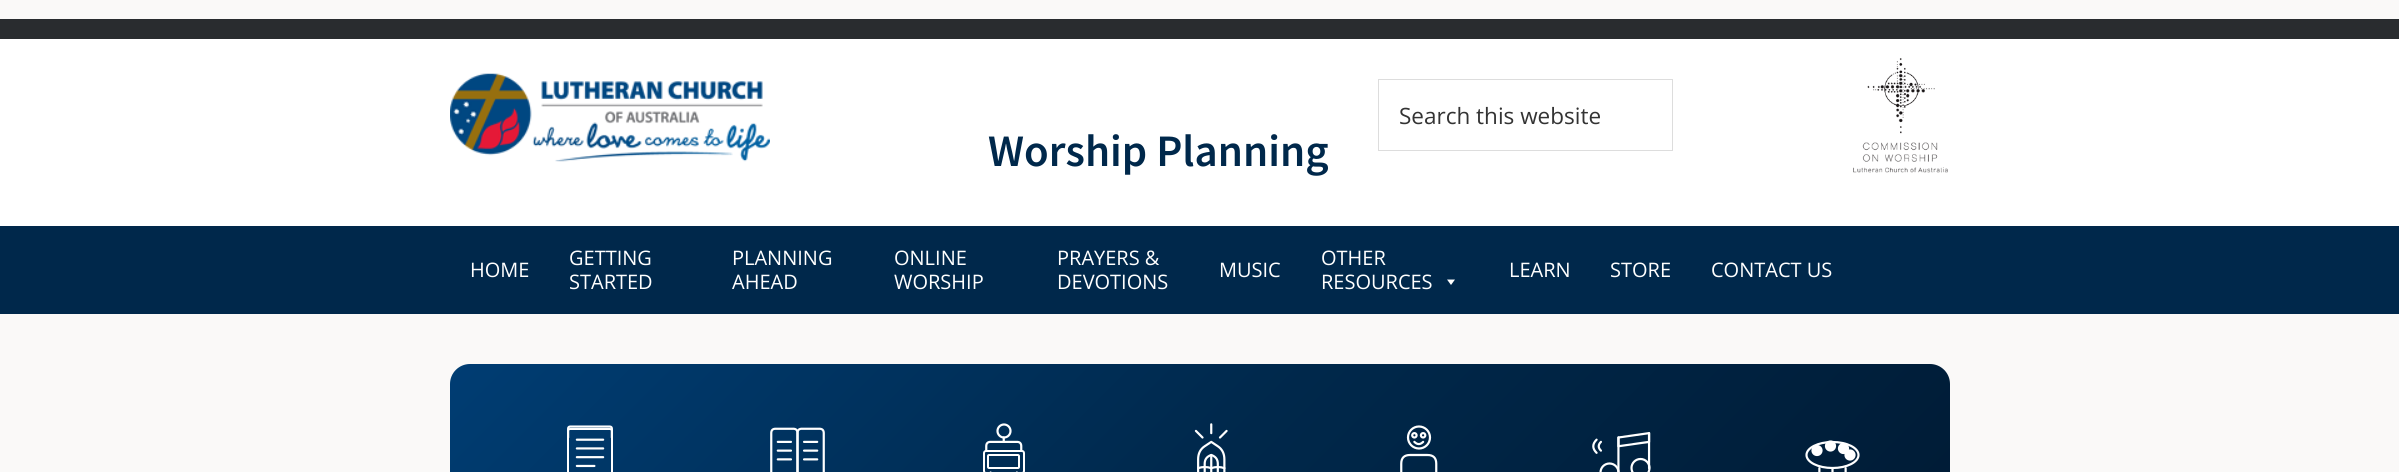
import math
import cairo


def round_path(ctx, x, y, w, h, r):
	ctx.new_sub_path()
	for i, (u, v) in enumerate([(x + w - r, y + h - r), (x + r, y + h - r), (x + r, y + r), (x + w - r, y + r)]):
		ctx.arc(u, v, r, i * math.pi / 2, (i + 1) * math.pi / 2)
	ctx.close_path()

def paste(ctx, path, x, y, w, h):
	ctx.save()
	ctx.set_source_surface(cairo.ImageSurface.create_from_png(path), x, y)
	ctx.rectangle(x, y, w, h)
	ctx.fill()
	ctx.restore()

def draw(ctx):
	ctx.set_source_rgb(0.98, 0.976, 0.969)
	ctx.paint()
	ctx.set_source_rgb(0.161, 0.173, 0.184)
	ctx.rectangle(0, 19, 2399, 20)
	ctx.fill()
	ctx.set_source_rgb(1, 1, 1)
	ctx.rectangle(0, 39, 2399, 187)
	ctx.fill()
	paste(ctx, 'media/1.png', 450, 73, 320, 89)
	ctx.rectangle(1378.5, 79.5, 294, 71)
	ctx.set_source_rgb(0.867, 0.867, 0.867)
	ctx.set_line_width(1)
	ctx.stroke()
	ctx.select_font_face('Open Sans')
	ctx.set_font_size(22.5)
	ctx.set_source_rgb(0.2, 0.2, 0.2)
	ctx.move_to(1399, 124)
	ctx.show_text('Search this website')
	paste(ctx, 'media/2.png', 1853, 58, 95, 115)
	ctx.select_font_face('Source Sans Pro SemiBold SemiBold')
	ctx.set_font_size(45)
	ctx.set_source_rgb(0, 0.157, 0.294)
	ctx.move_to(988, 166)
	ctx.show_text('Worship Planning')
	ctx.rectangle(0, 226, 2399, 88)
	ctx.fill()
	ctx.select_font_face('Open Sans')
	ctx.set_font_size(20)
	ctx.set_source_rgb(1, 1, 1)
	for x, y, s in [
		(470, 277, 'HOME'),
		(569, 265, 'GETTING'),
		(569, 289, 'STARTED'),
		(732, 265, 'PLANNING'),
		(732, 289, 'AHEAD'),
		(894, 265, 'ONLINE'),
		(894, 289, 'WORSHIP'),
		(1057, 265, 'PRAYERS &'),
		(1057, 289, 'DEVOTIONS'),
		(1219, 277, 'MUSIC'),
		(1321, 265, 'OTHER'),
		(1321, 289, 'RESOURCES'),
	]:
		ctx.move_to(x, y)
		ctx.show_text(s)
	ctx.new_path()
	ctx.move_to(1455, 279.5)
	ctx.line_to(1451, 285)
	ctx.line_to(1447, 279.5)
	ctx.close_path()
	ctx.fill()
	for x, y, s in [
		(1509, 277, 'LEARN'),
		(1610, 277, 'STORE'),
		(1711, 277, 'CONTACT US'),
	]:
		ctx.move_to(x, y)
		ctx.show_text(s)
	gradient = cairo.LinearGradient(766, 48, 1634, 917)
	gradient.add_color_stop_rgba(0, 0, 0.239, 0.451, 1)
	gradient.add_color_stop_rgba(0.5, 0, 0.157, 0.294, 1)
	gradient.add_color_stop_rgba(1, 0, 0.102, 0.2, 1)
	ctx.set_source(gradient)
	round_path(ctx, 450, 364, 1500, 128, 20)
	ctx.fill()
	paste(ctx, 'media/3.png', 567, 425, 46, 47)
	paste(ctx, 'media/4.png', 770, 427, 55, 45)
	paste(ctx, 'media/5.png', 983, 423, 42, 49)
	paste(ctx, 'media/6.png', 1194, 423, 34, 49)
	paste(ctx, 'media/7.png', 1400, 425, 38, 47)
	paste(ctx, 'media/8.png', 1592, 432, 59, 40)
	paste(ctx, 'media/9.png', 1805, 440, 55, 32)


surface = cairo.ImageSurface(cairo.FORMAT_RGB24, 2399, 472)
ctx = cairo.Context(surface)
options = cairo.FontOptions()
options.set_hint_metrics(cairo.HINT_METRICS_OFF)
options.set_hint_style(cairo.HINT_STYLE_NONE)
ctx.set_font_options(options)
ctx.set_miter_limit(4)
draw(ctx)
surface.write_to_png('image.png')
